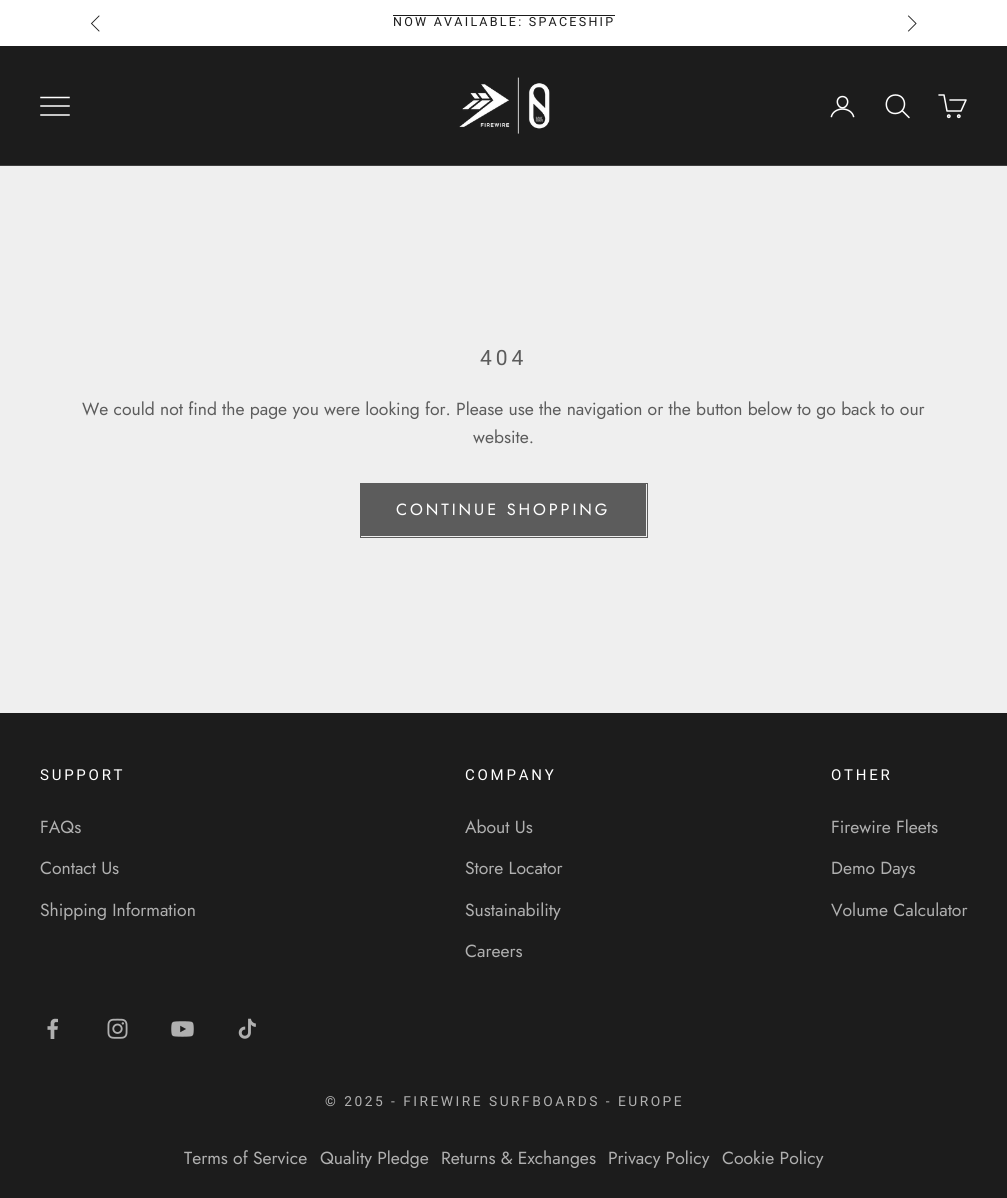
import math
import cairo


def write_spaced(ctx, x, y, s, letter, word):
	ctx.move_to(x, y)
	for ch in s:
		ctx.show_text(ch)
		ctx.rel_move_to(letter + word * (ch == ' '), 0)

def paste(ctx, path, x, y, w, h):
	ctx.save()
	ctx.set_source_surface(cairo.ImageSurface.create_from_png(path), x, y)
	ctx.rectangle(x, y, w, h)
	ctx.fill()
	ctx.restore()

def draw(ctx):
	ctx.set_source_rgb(0.937, 0.937, 0.937)
	ctx.paint()
	ctx.set_source_rgb(1, 1, 1)
	ctx.rectangle(0, 0, 1007, 46)
	ctx.fill()
	ctx.new_path()
	ctx.move_to(99, 16)
	ctx.line_to(91.5, 23.5)
	ctx.line_to(99, 31)
	ctx.set_source_rgb(0.11, 0.11, 0.11)
	ctx.set_line_width(0.9)
	ctx.set_line_cap(cairo.LINE_CAP_SQUARE)
	ctx.stroke()
	ctx.select_font_face('Roboto')
	ctx.set_font_size(12.5)
	write_spaced(ctx, 393, 26, 'NOW AVAILABLE: SPACESHIP', 2.25, 0)
	ctx.rectangle(393, 15, 222, 1)
	ctx.fill()
	ctx.new_path()
	ctx.move_to(908.5, 31)
	ctx.line_to(916, 23.5)
	ctx.line_to(908.5, 16)
	ctx.stroke()
	ctx.rectangle(0, 46, 1007, 119)
	ctx.fill()
	ctx.set_source_rgb(0.243, 0.243, 0.243)
	ctx.rectangle(0, 165, 1007, 1)
	ctx.fill()
	ctx.new_path()
	ctx.move_to(41, 115)
	ctx.line_to(69, 115)
	ctx.move_to(41, 106)
	ctx.line_to(69, 106)
	ctx.move_to(41, 97.5)
	ctx.line_to(69, 97.5)
	ctx.set_source_rgb(1, 1, 1)
	ctx.set_line_width(1.5)
	ctx.stroke()
	paste(ctx, 'media/1.png', 459, 77, 91, 57)
	paste(ctx, 'media/2.png', 830, 95, 25, 23)
	ctx.new_path()
	ctx.move_to(895.5, 95)
	ctx.curve_to(883, 95, 883.5, 114, 895.5, 113.5)
	ctx.curve_to(907.5, 113, 907.5, 95, 895.5, 95)
	ctx.close_path()
	ctx.set_line_cap(cairo.LINE_CAP_BUTT)
	ctx.stroke()
	ctx.new_path()
	ctx.move_to(902.5, 111)
	ctx.line_to(909, 117.5)
	ctx.set_line_cap(cairo.LINE_CAP_ROUND)
	ctx.stroke()
	ctx.new_path()
	ctx.move_to(950, 100)
	ctx.line_to(966, 100)
	ctx.line_to(961, 111)
	ctx.line_to(947, 111)
	ctx.line_to(944, 95)
	ctx.line_to(939, 95)
	ctx.set_line_join(cairo.LINE_JOIN_ROUND)
	ctx.stroke()
	ctx.arc(948.8, 116.2, 1.2, 0, 2 * math.pi)
	ctx.set_line_cap(cairo.LINE_CAP_BUTT)
	ctx.set_line_join(cairo.LINE_JOIN_MITER)
	ctx.stroke()
	ctx.arc(958.8, 116.2, 1.2, 0, 2 * math.pi)
	ctx.stroke()
	ctx.set_font_size(21)
	ctx.set_source_rgb(0.361, 0.361, 0.361)
	write_spaced(ctx, 480, 365, '404', 4, 0)
	ctx.select_font_face('Jost')
	ctx.set_font_size(17.5)
	ctx.move_to(82, 415)
	ctx.show_text('We could not find the page you were looking for. Please use the navigation or the button below to go back to our')
	ctx.move_to(473, 443)
	ctx.show_text('website.')
	ctx.rectangle(361, 484, 285, 52)
	ctx.fill()
	ctx.rectangle(360.5, 483.5, 287, 54)
	ctx.set_line_width(1)
	ctx.stroke()
	ctx.set_font_size(16.25)
	ctx.set_source_rgb(1, 1, 1)
	write_spaced(ctx, 396, 515, 'CONTINUE SHOPPING', 2.9, 0)
	ctx.set_source_rgb(0.11, 0.11, 0.11)
	ctx.rectangle(0, 713, 1007, 485)
	ctx.fill()
	ctx.select_font_face('Roboto')
	ctx.set_font_size(15)
	ctx.set_source_rgb(1, 1, 1)
	write_spaced(ctx, 40, 780, 'SUPPORT', 2.75, 0)
	ctx.select_font_face('Jost')
	ctx.set_font_size(17.5)
	ctx.set_source_rgb(0.69, 0.69, 0.69)
	for x, y, s in [
		(40, 833, 'FAQs'),
		(40, 874, 'Contact Us'),
		(40, 916, 'Shipping Information'),
	]:
		ctx.move_to(x, y)
		ctx.show_text(s)
	ctx.select_font_face('Roboto')
	ctx.set_font_size(15)
	ctx.set_source_rgb(1, 1, 1)
	write_spaced(ctx, 465, 780, 'COMPANY', 2.75, 0)
	ctx.select_font_face('Jost')
	ctx.set_font_size(17.5)
	ctx.set_source_rgb(0.69, 0.69, 0.69)
	for x, y, s in [
		(465, 833, 'About Us'),
		(465, 874, 'Store Locator'),
		(465, 916, 'Sustainability'),
		(465, 957, 'Careers'),
	]:
		ctx.move_to(x, y)
		ctx.show_text(s)
	ctx.select_font_face('Roboto')
	ctx.set_font_size(15)
	ctx.set_source_rgb(1, 1, 1)
	write_spaced(ctx, 831, 780, 'OTHER', 2.75, 0)
	ctx.select_font_face('Jost')
	ctx.set_font_size(17.5)
	ctx.set_source_rgb(0.69, 0.69, 0.69)
	for x, y, s in [
		(831, 833, 'Firewire Fleets'),
		(831, 874, 'Demo Days'),
		(831, 916, 'Volume Calculator'),
	]:
		ctx.move_to(x, y)
		ctx.show_text(s)
	paste(ctx, 'media/3.png', 47, 1018, 11, 21)
	paste(ctx, 'media/4.png', 107, 1018, 21, 21)
	paste(ctx, 'media/5.png', 171, 1021, 23, 16)
	paste(ctx, 'media/6.png', 238, 1018, 18, 21)
	ctx.select_font_face('Roboto')
	ctx.set_font_size(13.75)
	write_spaced(ctx, 325, 1106, '© 2025 - FIREWIRE SURFBOARDS - EUROPE', 2.5, 0)
	ctx.select_font_face('Jost')
	ctx.set_font_size(17.5)
	for x, y, s in [
		(184, 1164, 'Terms of Service'),
		(320, 1164, 'Quality Pledge'),
		(441, 1164, 'Returns & Exchanges'),
		(608, 1164, 'Privacy Policy'),
		(722, 1164, 'Cookie Policy'),
	]:
		ctx.move_to(x, y)
		ctx.show_text(s)


surface = cairo.ImageSurface(cairo.FORMAT_RGB24, 1007, 1198)
ctx = cairo.Context(surface)
options = cairo.FontOptions()
options.set_hint_metrics(cairo.HINT_METRICS_OFF)
options.set_hint_style(cairo.HINT_STYLE_NONE)
ctx.set_font_options(options)
ctx.set_miter_limit(4)
draw(ctx)
surface.write_to_png('image.png')
